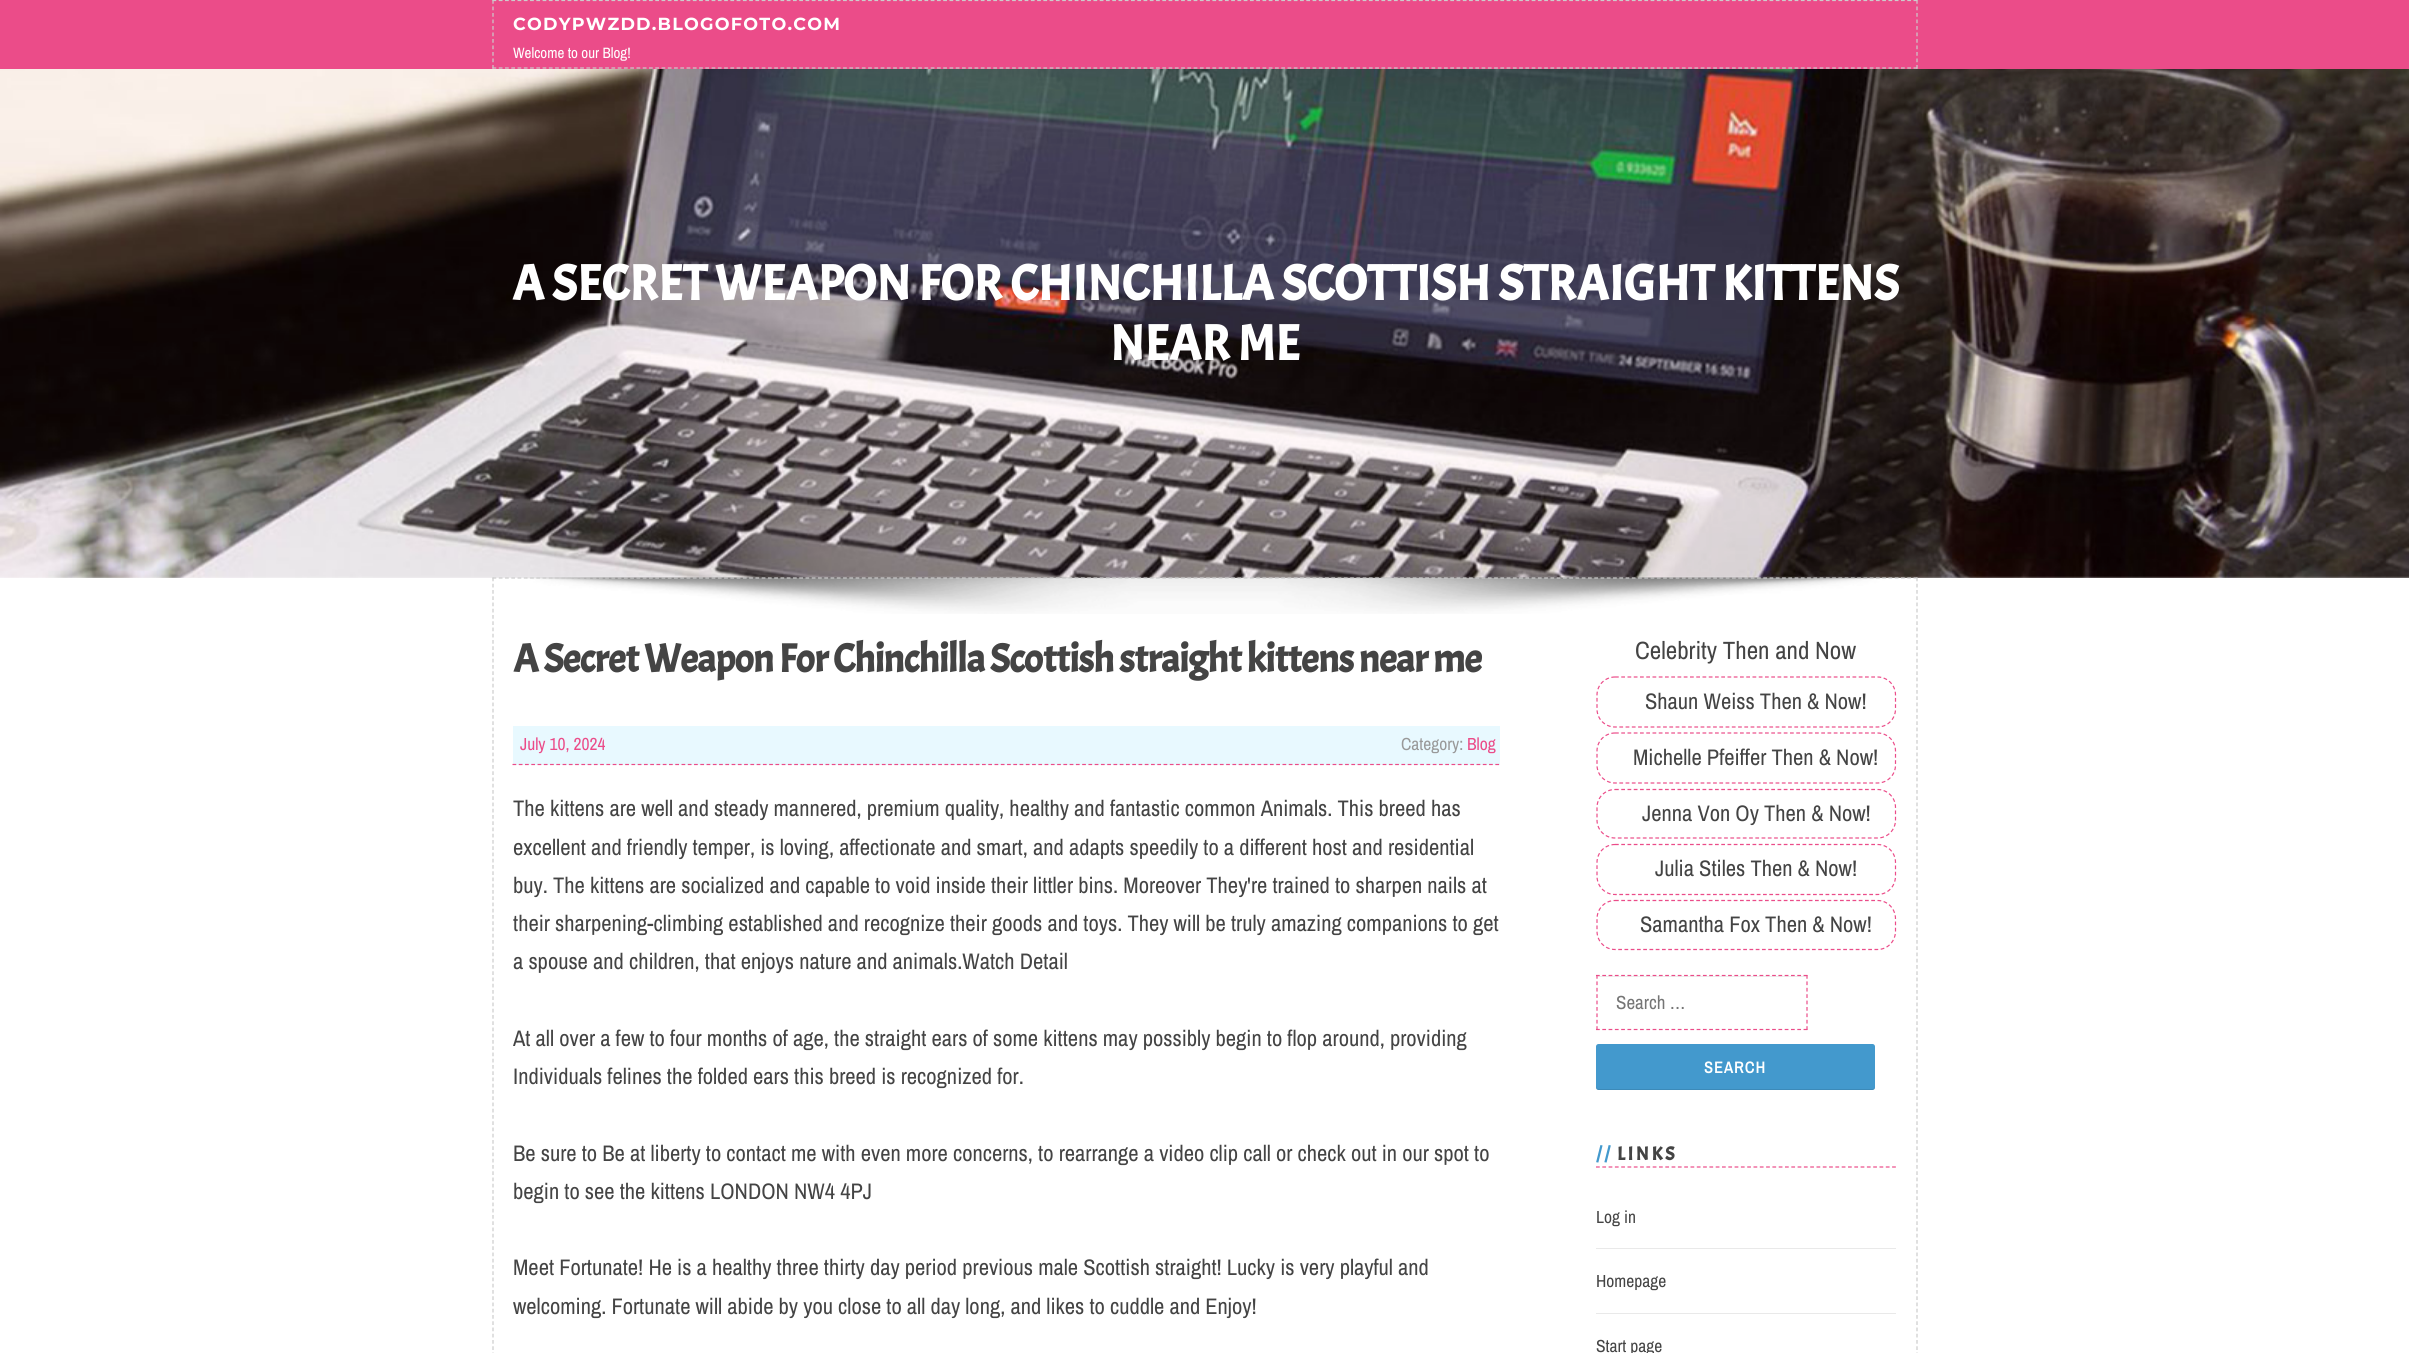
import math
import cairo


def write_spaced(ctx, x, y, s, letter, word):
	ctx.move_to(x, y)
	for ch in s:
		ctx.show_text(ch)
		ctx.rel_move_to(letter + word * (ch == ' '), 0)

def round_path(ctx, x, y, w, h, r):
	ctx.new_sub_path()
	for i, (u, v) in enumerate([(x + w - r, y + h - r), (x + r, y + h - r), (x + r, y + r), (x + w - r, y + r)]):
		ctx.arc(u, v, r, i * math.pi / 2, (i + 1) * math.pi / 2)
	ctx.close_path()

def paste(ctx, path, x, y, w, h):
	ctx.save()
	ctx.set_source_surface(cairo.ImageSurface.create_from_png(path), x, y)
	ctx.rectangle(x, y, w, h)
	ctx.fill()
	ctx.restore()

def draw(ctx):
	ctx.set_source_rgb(1, 1, 1)
	ctx.paint()
	ctx.set_source_rgb(0.918, 0.298, 0.537)
	ctx.rectangle(0, 0, 2409, 69)
	ctx.fill()
	ctx.new_path()
	ctx.move_to(492.5, 0.5)
	ctx.line_to(1917.5, 0.5)
	ctx.set_source_rgb(0.8, 0.8, 0.8)
	ctx.set_line_width(1.2)
	ctx.set_dash([3.75, 2.51])
	ctx.stroke()
	ctx.new_path()
	ctx.move_to(1917, 0)
	ctx.line_to(1917, 69)
	ctx.set_dash([3.75, 2.75])
	ctx.stroke()
	ctx.new_path()
	ctx.move_to(492.5, 68)
	ctx.line_to(1917.5, 68)
	ctx.set_dash([3.75, 2.51])
	ctx.stroke()
	ctx.new_path()
	ctx.move_to(493, 0)
	ctx.line_to(493, 69)
	ctx.set_dash([3.75, 2.75])
	ctx.stroke()
	ctx.select_font_face('Montserrat', cairo.FONT_SLANT_NORMAL, cairo.FONT_WEIGHT_BOLD)
	ctx.set_font_size(17.5)
	ctx.set_source_rgb(1, 1, 1)
	write_spaced(ctx, 513, 30, 'CODYPWZDD.BLOGOFOTO.COM', 1.25, 0)
	ctx.select_font_face('Archivo Narrow')
	ctx.set_font_size(15)
	ctx.move_to(513, 58)
	ctx.show_text('Welcome to our Blog!')
	paste(ctx, 'media/1.png', 0, 69, 2409, 509)
	ctx.select_font_face('Acme', cairo.FONT_SLANT_NORMAL, cairo.FONT_WEIGHT_BOLD)
	ctx.set_font_size(50)
	ctx.move_to(512, 300)
	ctx.show_text('A SECRET WEAPON FOR CHINCHILLA SCOTTISH STRAIGHT KITTENS')
	ctx.move_to(1110, 360)
	ctx.show_text('NEAR ME')
	paste(ctx, 'media/2.png', 526, 577, 1361, 37)
	ctx.new_path()
	ctx.move_to(492.5, 578)
	ctx.line_to(1917.5, 578)
	ctx.set_source_rgb(0.8, 0.8, 0.8)
	ctx.set_dash([3.75, 2.51])
	ctx.stroke()
	ctx.new_path()
	ctx.move_to(1917, 577.5)
	ctx.line_to(1917, 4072.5)
	ctx.set_dash([3.75, 2.5])
	ctx.stroke()
	ctx.new_path()
	ctx.move_to(493, 577.5)
	ctx.line_to(493, 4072.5)
	ctx.stroke()
	ctx.set_font_size(40)
	ctx.set_source_rgb(0.267, 0.267, 0.267)
	write_spaced(ctx, 513, 672, 'A Secret Weapon For Chinchilla Scottish straight kittens near me', -0.75, 0)
	ctx.set_source_rgb(0.91, 0.976, 1)
	ctx.rectangle(513, 726, 987, 39)
	ctx.fill()
	ctx.new_path()
	ctx.move_to(512.5, 764.5)
	ctx.line_to(1500, 764.5)
	ctx.set_source_rgb(0.918, 0.298, 0.537)
	ctx.set_dash([3.75, 2.51])
	ctx.stroke()
	ctx.select_font_face('Archivo Narrow')
	ctx.set_font_size(17.5)
	ctx.move_to(520, 750)
	ctx.show_text('July 10, 2024')
	ctx.set_source_rgb(0.6, 0.6, 0.6)
	ctx.move_to(1401, 750)
	ctx.show_text('Category:')
	ctx.set_source_rgb(0.918, 0.298, 0.537)
	ctx.move_to(1467, 750)
	ctx.show_text('Blog')
	ctx.set_font_size(22.5)
	ctx.set_source_rgb(0.267, 0.267, 0.267)
	for x, y, s in [
		(513, 816, 'The kittens are well and steady mannered, premium quality, healthy and fantastic common Animals. This breed has'),
		(513, 855, 'excellent and friendly temper, is loving, affectionate and smart, and adapts speedily to a different host and residential'),
		(513, 893, 'buy. The kittens are socialized and capable to void inside their littler bins. Moreover They\'re trained to sharpen nails at'),
		(513, 931, 'their sharpening-climbing established and recognize their goods and toys. They will be truly amazing companions to get'),
		(513, 969, 'a spouse and children, that enjoys nature and animals.Watch Detail'),
		(513, 1046, 'At all over a few to four months of age, the straight ears of some kittens may possibly begin to flop around, providing'),
		(513, 1084, 'Individuals felines the folded ears this breed is recognized for.'),
		(513, 1161, 'Be sure to Be at liberty to contact me with even more concerns, to rearrange a video clip call or check out in our spot to'),
		(513, 1199, 'begin to see the kittens LONDON NW4 4PJ'),
		(513, 1275, 'Meet Fortunate! He is a healthy three thirty day period previous male Scottish straight! Lucky is very playful and'),
		(513, 1314, 'welcoming. Fortunate will abide by you close to all day long, and likes to cuddle and Enjoy!'),
	]:
		ctx.move_to(x, y)
		ctx.show_text(s)
	ctx.set_font_size(25)
	ctx.move_to(1635, 659)
	ctx.show_text('Celebrity Then and Now')
	ctx.new_path()
	ctx.move_to(1615, 677)
	ctx.line_to(1877.5, 677)
	ctx.curve_to(1887.5, 677, 1895.5, 685, 1895.5, 695)
	ctx.line_to(1895.5, 709)
	ctx.curve_to(1895.5, 719, 1887.5, 727, 1877.5, 727)
	ctx.line_to(1615, 727)
	ctx.curve_to(1605, 727, 1597, 719, 1597, 709)
	ctx.line_to(1597, 695)
	ctx.curve_to(1597, 685, 1605, 677, 1615, 677)
	ctx.close_path()
	ctx.set_source_rgb(0.918, 0.298, 0.537)
	ctx.set_dash([3.75, 2.5])
	ctx.stroke()
	ctx.set_font_size(22.5)
	ctx.set_source_rgb(0.267, 0.267, 0.267)
	ctx.move_to(1645, 709)
	ctx.show_text('Shaun Weiss Then & Now!')
	ctx.new_path()
	ctx.move_to(1615, 733)
	ctx.line_to(1877.5, 733)
	ctx.curve_to(1887.5, 733, 1895.5, 741, 1895.5, 751)
	ctx.line_to(1895.5, 765)
	ctx.curve_to(1895.5, 775, 1887.5, 783, 1877.5, 783)
	ctx.line_to(1615, 783)
	ctx.curve_to(1605, 783, 1597, 775, 1597, 765)
	ctx.line_to(1597, 751)
	ctx.curve_to(1597, 741, 1605, 733, 1615, 733)
	ctx.close_path()
	ctx.set_source_rgb(0.918, 0.298, 0.537)
	ctx.stroke()
	ctx.set_source_rgb(0.267, 0.267, 0.267)
	ctx.move_to(1633, 765)
	ctx.show_text('Michelle Pfeiffer Then & Now!')
	ctx.new_path()
	ctx.move_to(1615, 789.5)
	ctx.line_to(1877.5, 789.5)
	ctx.curve_to(1887.5, 789.5, 1895.5, 797.5, 1895.5, 807.5)
	ctx.line_to(1895.5, 820)
	ctx.curve_to(1895.5, 830, 1887.5, 838, 1877.5, 838)
	ctx.line_to(1615, 838)
	ctx.curve_to(1605, 838, 1597, 830, 1597, 820)
	ctx.line_to(1597, 807.5)
	ctx.curve_to(1597, 797.5, 1605, 789.5, 1615, 789.5)
	ctx.close_path()
	ctx.set_source_rgb(0.918, 0.298, 0.537)
	ctx.stroke()
	ctx.set_source_rgb(0.267, 0.267, 0.267)
	ctx.move_to(1642, 821)
	ctx.show_text('Jenna Von Oy Then & Now!')
	ctx.new_path()
	ctx.move_to(1615, 844.5)
	ctx.line_to(1877.5, 844.5)
	ctx.curve_to(1887.5, 844.5, 1895.5, 852.5, 1895.5, 862.5)
	ctx.line_to(1895.5, 876)
	ctx.curve_to(1895.5, 886.5, 1887.5, 894.5, 1877.5, 894.5)
	ctx.line_to(1615, 894.5)
	ctx.curve_to(1605, 894.5, 1597, 886.5, 1597, 876)
	ctx.line_to(1597, 862.5)
	ctx.curve_to(1597, 852.5, 1605, 844.5, 1615, 844.5)
	ctx.close_path()
	ctx.set_source_rgb(0.918, 0.298, 0.537)
	ctx.stroke()
	ctx.set_source_rgb(0.267, 0.267, 0.267)
	ctx.move_to(1655, 876)
	ctx.show_text('Julia Stiles Then & Now!')
	ctx.new_path()
	ctx.move_to(1615, 900.5)
	ctx.line_to(1877.5, 900.5)
	ctx.curve_to(1887.5, 900.5, 1895.5, 908.5, 1895.5, 919)
	ctx.line_to(1895.5, 931)
	ctx.curve_to(1895.5, 941.5, 1887.5, 949.5, 1877.5, 949.5)
	ctx.line_to(1615, 949.5)
	ctx.curve_to(1605, 949.5, 1597, 941.5, 1597, 931)
	ctx.line_to(1597, 919)
	ctx.curve_to(1597, 908.5, 1605, 900.5, 1615, 900.5)
	ctx.close_path()
	ctx.set_source_rgb(0.918, 0.298, 0.537)
	ctx.stroke()
	ctx.set_source_rgb(0.267, 0.267, 0.267)
	ctx.move_to(1640, 932)
	ctx.show_text('Samantha Fox Then & Now!')
	ctx.set_source_rgb(0.922, 0.922, 0.922)
	ctx.rectangle(1598, 976, 208, 1)
	ctx.fill()
	ctx.new_path()
	ctx.move_to(1596, 975.5)
	ctx.line_to(1807.5, 975.5)
	ctx.set_source_rgb(0.918, 0.298, 0.537)
	ctx.set_dash([3.75, 2.54])
	ctx.stroke()
	ctx.new_path()
	ctx.move_to(1807, 975)
	ctx.line_to(1807, 1030)
	ctx.set_dash([3.75, 2.65])
	ctx.stroke()
	ctx.new_path()
	ctx.move_to(1596, 1029.5)
	ctx.line_to(1807.5, 1029.5)
	ctx.set_dash([3.75, 2.54])
	ctx.stroke()
	ctx.new_path()
	ctx.move_to(1597, 975)
	ctx.line_to(1597, 1030)
	ctx.set_dash([3.75, 2.65])
	ctx.stroke()
	ctx.set_font_size(19)
	ctx.set_source_rgb(0.459, 0.459, 0.459)
	ctx.move_to(1616, 1009)
	ctx.show_text('Search …')
	ctx.set_source_rgb(0.263, 0.6, 0.804)
	round_path(ctx, 1596, 1044, 279, 46, 2.5)
	ctx.fill()
	ctx.set_source_rgba(0, 0, 0, 0.1)
	ctx.new_path()
	ctx.move_to(1596, 1086)
	ctx.line_to(1596, 1088)
	ctx.curve_to(1596, 1089, 1597, 1090, 1598, 1090)
	ctx.line_to(1872, 1090)
	ctx.curve_to(1874, 1090, 1875, 1089, 1875, 1088)
	ctx.line_to(1875, 1086)
	ctx.curve_to(1875, 1088, 1874, 1089, 1872, 1089)
	ctx.line_to(1599, 1089)
	ctx.curve_to(1597, 1089, 1596, 1088, 1596, 1086)
	ctx.close_path()
	ctx.fill()
	ctx.select_font_face('Archivo Narrow', cairo.FONT_SLANT_NORMAL, cairo.FONT_WEIGHT_BOLD)
	ctx.set_font_size(16)
	ctx.set_source_rgb(1, 1, 1)
	write_spaced(ctx, 1704, 1073, 'SEARCH', 1.25, 0)
	ctx.new_path()
	ctx.move_to(1596, 1167)
	ctx.line_to(1896, 1167)
	ctx.set_source_rgb(0.918, 0.298, 0.537)
	ctx.set_dash([3.75, 2.55])
	ctx.stroke()
	ctx.select_font_face('Acme', cairo.FONT_SLANT_NORMAL, cairo.FONT_WEIGHT_BOLD)
	ctx.set_font_size(19)
	ctx.set_source_rgb(0.263, 0.6, 0.804)
	write_spaced(ctx, 1596, 1160, '//', 2.5, 0)
	ctx.set_source_rgb(0.267, 0.267, 0.267)
	write_spaced(ctx, 1617, 1160, 'LINKS', 2.5, 0)
	ctx.set_source_rgb(0.914, 0.914, 0.914)
	ctx.rectangle(1596, 1248, 300, 1)
	ctx.fill()
	ctx.select_font_face('Archivo Narrow')
	ctx.set_font_size(17.5)
	ctx.set_source_rgb(0.267, 0.267, 0.267)
	ctx.move_to(1596, 1223)
	ctx.show_text('Log in')
	ctx.set_source_rgb(0.914, 0.914, 0.914)
	ctx.rectangle(1596, 1313, 300, 1)
	ctx.fill()
	ctx.set_source_rgb(0.267, 0.267, 0.267)
	ctx.move_to(1596, 1287)
	ctx.show_text('Homepage')
	ctx.move_to(1596, 1352)
	ctx.show_text('Start page')


surface = cairo.ImageSurface(cairo.FORMAT_RGB24, 2409, 1353)
ctx = cairo.Context(surface)
options = cairo.FontOptions()
options.set_hint_metrics(cairo.HINT_METRICS_OFF)
options.set_hint_style(cairo.HINT_STYLE_NONE)
ctx.set_font_options(options)
ctx.set_miter_limit(4)
draw(ctx)
surface.write_to_png('image.png')
